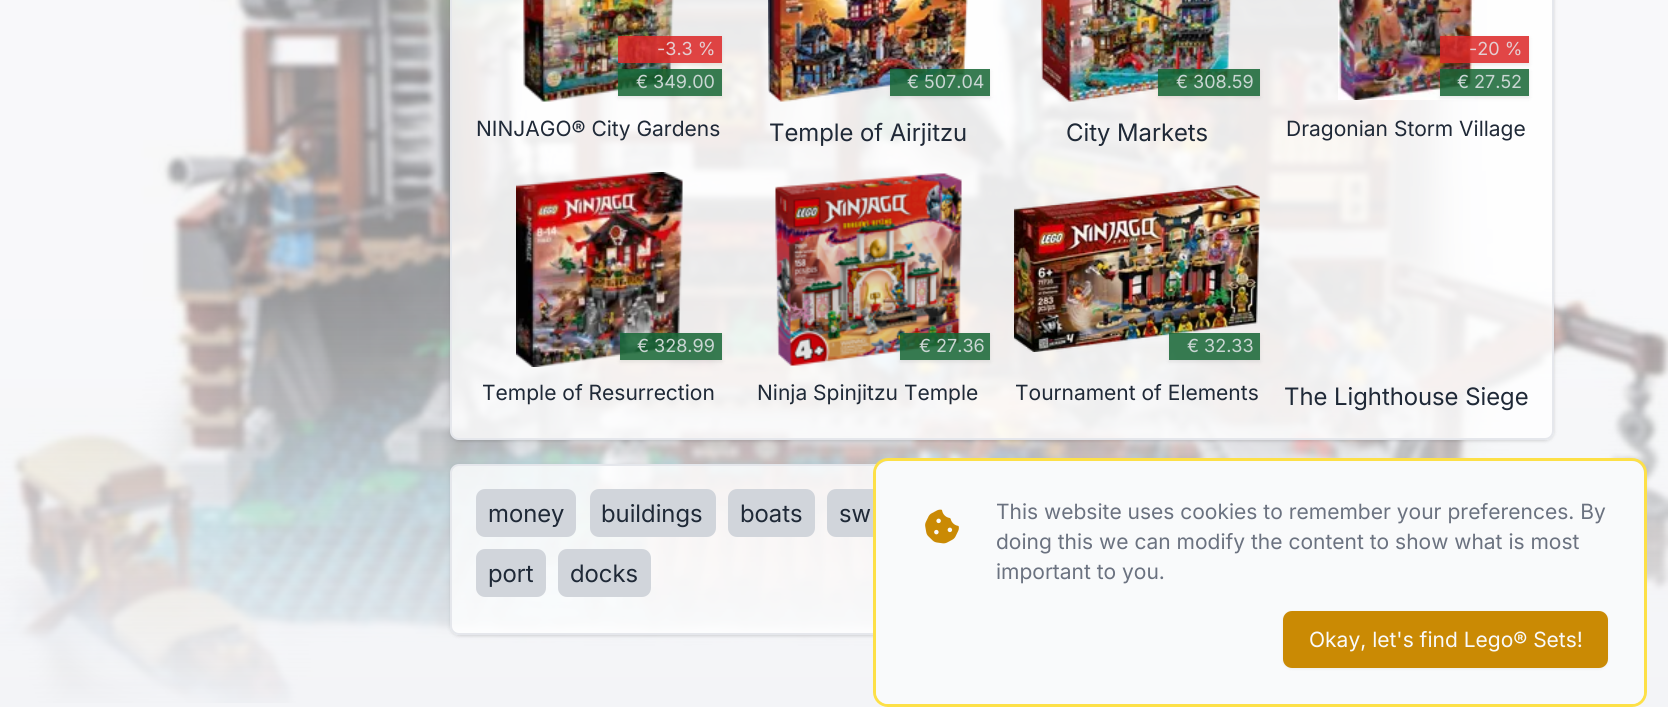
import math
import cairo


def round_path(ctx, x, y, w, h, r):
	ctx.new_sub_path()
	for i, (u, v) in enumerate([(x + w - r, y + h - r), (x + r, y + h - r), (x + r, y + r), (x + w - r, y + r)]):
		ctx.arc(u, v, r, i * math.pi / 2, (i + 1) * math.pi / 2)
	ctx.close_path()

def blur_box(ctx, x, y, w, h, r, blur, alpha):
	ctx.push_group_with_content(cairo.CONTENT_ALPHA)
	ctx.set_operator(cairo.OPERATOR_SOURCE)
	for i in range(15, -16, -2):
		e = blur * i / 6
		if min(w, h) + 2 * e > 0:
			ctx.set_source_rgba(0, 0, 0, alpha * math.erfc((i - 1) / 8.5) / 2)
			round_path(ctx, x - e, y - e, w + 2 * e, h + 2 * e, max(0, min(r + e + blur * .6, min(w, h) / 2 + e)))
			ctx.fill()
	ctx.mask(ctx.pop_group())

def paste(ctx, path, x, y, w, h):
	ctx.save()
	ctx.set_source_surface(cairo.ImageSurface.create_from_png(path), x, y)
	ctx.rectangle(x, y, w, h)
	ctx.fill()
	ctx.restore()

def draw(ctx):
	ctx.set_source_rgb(0.953, 0.957, 0.965)
	ctx.paint()
	paste(ctx, 'media/1.png', 0, 0, 1668, 703)
	ctx.save()
	ctx.set_fill_rule(cairo.FILL_RULE_EVEN_ODD)
	ctx.new_path()
	ctx.move_to(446, 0)
	ctx.line_to(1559, 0)
	ctx.line_to(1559, 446)
	ctx.line_to(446, 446)
	ctx.close_path()
	ctx.move_to(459, -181)
	ctx.line_to(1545, -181)
	ctx.curve_to(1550, -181, 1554, -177, 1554, -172)
	ctx.line_to(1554, 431)
	ctx.curve_to(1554, 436, 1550, 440, 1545, 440)
	ctx.line_to(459, 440)
	ctx.curve_to(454, 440, 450, 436, 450, 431)
	ctx.line_to(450, -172)
	ctx.curve_to(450, -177, 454, -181, 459, -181)
	ctx.close_path()
	ctx.clip()
	ctx.set_source_rgb(0, 0, 0)
	blur_box(ctx, 452, -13, 1101, 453, 8, 1.5, 0.1)
	ctx.restore()
	ctx.save()
	ctx.set_fill_rule(cairo.FILL_RULE_EVEN_ODD)
	ctx.new_path()
	ctx.move_to(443, 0)
	ctx.line_to(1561, 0)
	ctx.line_to(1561, 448)
	ctx.line_to(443, 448)
	ctx.close_path()
	ctx.move_to(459, -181)
	ctx.line_to(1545, -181)
	ctx.curve_to(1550, -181, 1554, -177, 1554, -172)
	ctx.line_to(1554, 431)
	ctx.curve_to(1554, 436, 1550, 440, 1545, 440)
	ctx.line_to(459, 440)
	ctx.curve_to(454, 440, 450, 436, 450, 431)
	ctx.line_to(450, -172)
	ctx.curve_to(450, -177, 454, -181, 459, -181)
	ctx.close_path()
	ctx.clip()
	ctx.set_source_rgb(0, 0, 0)
	blur_box(ctx, 450, -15, 1104, 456, 9, 2, 0.1)
	ctx.restore()
	ctx.set_source_rgba(1, 1, 1, 0.8)
	round_path(ctx, 451, -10, 1102, 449, 8)
	ctx.fill_preserve()
	ctx.set_source_rgb(0.898, 0.906, 0.922)
	ctx.stroke()
	paste(ctx, 'media/2.png', 523, 0, 151, 102)
	ctx.save()
	ctx.set_fill_rule(cairo.FILL_RULE_EVEN_ODD)
	ctx.new_path()
	ctx.move_to(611, 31)
	ctx.line_to(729, 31)
	ctx.line_to(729, 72)
	ctx.line_to(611, 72)
	ctx.close_path()
	ctx.move_to(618, 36)
	ctx.line_to(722, 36)
	ctx.line_to(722, 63)
	ctx.line_to(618, 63)
	ctx.close_path()
	ctx.clip()
	ctx.set_source_rgb(0, 0, 0)
	blur_box(ctx, 618, 38, 104, 27, 0, 2, 0.09)
	ctx.restore()
	ctx.set_source_rgba(0.863, 0.149, 0.149, 0.85)
	ctx.rectangle(618, 36, 104, 27)
	ctx.fill()
	ctx.select_font_face('Inter')
	ctx.set_font_size(18)
	ctx.set_source_rgb(0.894, 0.808, 0.82)
	ctx.move_to(657, 55)
	ctx.show_text('-3.3 %')
	ctx.save()
	ctx.set_fill_rule(cairo.FILL_RULE_EVEN_ODD)
	ctx.new_path()
	ctx.move_to(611, 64)
	ctx.line_to(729, 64)
	ctx.line_to(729, 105)
	ctx.line_to(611, 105)
	ctx.close_path()
	ctx.move_to(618, 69)
	ctx.line_to(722, 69)
	ctx.line_to(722, 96)
	ctx.line_to(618, 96)
	ctx.close_path()
	ctx.clip()
	ctx.set_source_rgb(0, 0, 0)
	blur_box(ctx, 618, 71, 104, 27, 0, 2, 0.09)
	ctx.restore()
	ctx.set_source_rgba(0.086, 0.396, 0.204, 0.85)
	ctx.rectangle(618, 69, 104, 27)
	ctx.fill()
	ctx.set_source_rgb(0.792, 0.839, 0.827)
	ctx.move_to(636, 88)
	ctx.show_text('€ 349.00')
	ctx.set_font_size(21)
	ctx.set_source_rgb(0.122, 0.161, 0.216)
	ctx.move_to(476, 136)
	ctx.show_text('NINJAGO® City Gardens')
	paste(ctx, 'media/3.png', 768, 0, 200, 102)
	ctx.save()
	ctx.set_fill_rule(cairo.FILL_RULE_EVEN_ODD)
	ctx.new_path()
	ctx.move_to(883, 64)
	ctx.line_to(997, 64)
	ctx.line_to(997, 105)
	ctx.line_to(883, 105)
	ctx.close_path()
	ctx.move_to(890, 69)
	ctx.line_to(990, 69)
	ctx.line_to(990, 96)
	ctx.line_to(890, 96)
	ctx.close_path()
	ctx.clip()
	ctx.set_source_rgb(0, 0, 0)
	blur_box(ctx, 890, 71, 100, 27, 0, 2, 0.09)
	ctx.restore()
	ctx.set_source_rgba(0.086, 0.396, 0.204, 0.85)
	ctx.rectangle(890, 69, 100, 27)
	ctx.fill()
	ctx.set_font_size(18)
	ctx.set_source_rgb(0.792, 0.839, 0.827)
	ctx.move_to(907, 88)
	ctx.show_text('€ 507.04')
	ctx.select_font_face('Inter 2')
	ctx.set_font_size(24)
	ctx.set_source_rgb(0.122, 0.161, 0.216)
	ctx.move_to(769, 141)
	ctx.show_text('Temple of Airjitzu')
	paste(ctx, 'media/4.png', 1041, 0, 191, 102)
	ctx.save()
	ctx.set_fill_rule(cairo.FILL_RULE_EVEN_ODD)
	ctx.new_path()
	ctx.move_to(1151, 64)
	ctx.line_to(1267, 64)
	ctx.line_to(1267, 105)
	ctx.line_to(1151, 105)
	ctx.close_path()
	ctx.move_to(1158, 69)
	ctx.line_to(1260, 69)
	ctx.line_to(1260, 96)
	ctx.line_to(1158, 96)
	ctx.close_path()
	ctx.clip()
	ctx.set_source_rgb(0, 0, 0)
	blur_box(ctx, 1158, 71, 102, 27, 0, 2, 0.09)
	ctx.restore()
	ctx.set_source_rgba(0.086, 0.396, 0.204, 0.85)
	ctx.rectangle(1158, 69, 102, 27)
	ctx.fill()
	ctx.select_font_face('Inter')
	ctx.set_font_size(18)
	ctx.set_source_rgb(0.792, 0.839, 0.827)
	ctx.move_to(1176, 88)
	ctx.show_text('€ 308.59')
	ctx.select_font_face('Inter 2')
	ctx.set_font_size(24)
	ctx.set_source_rgb(0.122, 0.161, 0.216)
	ctx.move_to(1066, 141)
	ctx.show_text('City Markets')
	paste(ctx, 'media/5.png', 1338, 0, 137, 100)
	ctx.save()
	ctx.set_fill_rule(cairo.FILL_RULE_EVEN_ODD)
	ctx.new_path()
	ctx.move_to(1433, 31)
	ctx.line_to(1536, 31)
	ctx.line_to(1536, 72)
	ctx.line_to(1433, 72)
	ctx.close_path()
	ctx.move_to(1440, 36)
	ctx.line_to(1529, 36)
	ctx.line_to(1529, 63)
	ctx.line_to(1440, 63)
	ctx.close_path()
	ctx.clip()
	ctx.set_source_rgb(0, 0, 0)
	blur_box(ctx, 1440, 38, 89, 27, 0, 2, 0.09)
	ctx.restore()
	ctx.set_source_rgba(0.863, 0.149, 0.149, 0.85)
	ctx.rectangle(1440, 36, 89, 27)
	ctx.fill()
	ctx.select_font_face('Inter')
	ctx.set_font_size(18)
	ctx.set_source_rgb(0.894, 0.808, 0.82)
	ctx.move_to(1469, 55)
	ctx.show_text('-20 %')
	ctx.save()
	ctx.set_fill_rule(cairo.FILL_RULE_EVEN_ODD)
	ctx.new_path()
	ctx.move_to(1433, 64)
	ctx.line_to(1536, 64)
	ctx.line_to(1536, 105)
	ctx.line_to(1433, 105)
	ctx.close_path()
	ctx.move_to(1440, 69)
	ctx.line_to(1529, 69)
	ctx.line_to(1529, 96)
	ctx.line_to(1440, 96)
	ctx.close_path()
	ctx.clip()
	ctx.set_source_rgb(0, 0, 0)
	blur_box(ctx, 1440, 71, 89, 27, 0, 2, 0.09)
	ctx.restore()
	ctx.set_source_rgba(0.086, 0.396, 0.204, 0.85)
	ctx.rectangle(1440, 69, 89, 27)
	ctx.fill()
	ctx.set_source_rgb(0.792, 0.839, 0.827)
	ctx.move_to(1457, 88)
	ctx.show_text('€ 27.52')
	ctx.set_font_size(21)
	ctx.set_source_rgb(0.122, 0.161, 0.216)
	ctx.move_to(1286, 136)
	ctx.show_text('Dragonian Storm Village')
	paste(ctx, 'media/6.png', 516, 172, 167, 195)
	ctx.save()
	ctx.set_fill_rule(cairo.FILL_RULE_EVEN_ODD)
	ctx.new_path()
	ctx.move_to(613, 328)
	ctx.line_to(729, 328)
	ctx.line_to(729, 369)
	ctx.line_to(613, 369)
	ctx.close_path()
	ctx.move_to(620, 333)
	ctx.line_to(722, 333)
	ctx.line_to(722, 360)
	ctx.line_to(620, 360)
	ctx.close_path()
	ctx.clip()
	ctx.set_source_rgb(0, 0, 0)
	blur_box(ctx, 620, 335, 102, 27, 0, 2, 0.09)
	ctx.restore()
	ctx.set_source_rgba(0.086, 0.396, 0.204, 0.85)
	ctx.rectangle(620, 333, 102, 27)
	ctx.fill()
	ctx.set_font_size(18)
	ctx.set_source_rgb(0.792, 0.839, 0.827)
	ctx.move_to(637, 352)
	ctx.show_text('€ 328.99')
	ctx.set_font_size(21)
	ctx.set_source_rgb(0.122, 0.161, 0.216)
	ctx.move_to(482, 400)
	ctx.show_text('Temple of Resurrection')
	paste(ctx, 'media/7.png', 775, 173, 187, 193)
	ctx.save()
	ctx.set_fill_rule(cairo.FILL_RULE_EVEN_ODD)
	ctx.new_path()
	ctx.move_to(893, 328)
	ctx.line_to(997, 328)
	ctx.line_to(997, 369)
	ctx.line_to(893, 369)
	ctx.close_path()
	ctx.move_to(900, 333)
	ctx.line_to(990, 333)
	ctx.line_to(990, 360)
	ctx.line_to(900, 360)
	ctx.close_path()
	ctx.clip()
	ctx.set_source_rgb(0, 0, 0)
	blur_box(ctx, 900, 335, 90, 27, 0, 2, 0.09)
	ctx.restore()
	ctx.set_source_rgba(0.086, 0.396, 0.204, 0.85)
	ctx.rectangle(900, 333, 90, 27)
	ctx.fill()
	ctx.set_font_size(18)
	ctx.set_source_rgb(0.792, 0.839, 0.827)
	ctx.move_to(919, 352)
	ctx.show_text('€ 27.36')
	ctx.set_font_size(21)
	ctx.set_source_rgb(0.122, 0.161, 0.216)
	ctx.move_to(757, 400)
	ctx.show_text('Ninja Spinjitzu Temple')
	paste(ctx, 'media/8.png', 1014, 185, 246, 167)
	ctx.save()
	ctx.set_fill_rule(cairo.FILL_RULE_EVEN_ODD)
	ctx.new_path()
	ctx.move_to(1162, 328)
	ctx.line_to(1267, 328)
	ctx.line_to(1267, 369)
	ctx.line_to(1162, 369)
	ctx.close_path()
	ctx.move_to(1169, 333)
	ctx.line_to(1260, 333)
	ctx.line_to(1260, 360)
	ctx.line_to(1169, 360)
	ctx.close_path()
	ctx.clip()
	ctx.set_source_rgb(0, 0, 0)
	blur_box(ctx, 1169, 335, 91, 27, 0, 2, 0.09)
	ctx.restore()
	ctx.set_source_rgba(0.086, 0.396, 0.204, 0.85)
	ctx.rectangle(1169, 333, 91, 27)
	ctx.fill()
	ctx.set_font_size(18)
	ctx.set_source_rgb(0.792, 0.839, 0.827)
	ctx.move_to(1187, 352)
	ctx.show_text('€ 32.33')
	ctx.set_font_size(21)
	ctx.set_source_rgb(0.122, 0.161, 0.216)
	ctx.move_to(1015, 400)
	ctx.show_text('Tournament of Elements')
	ctx.select_font_face('Inter 2')
	ctx.set_font_size(24)
	ctx.move_to(1284, 405)
	ctx.show_text('The Lighthouse Siege')
	ctx.save()
	ctx.set_fill_rule(cairo.FILL_RULE_EVEN_ODD)
	ctx.new_path()
	ctx.move_to(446, 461)
	ctx.line_to(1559, 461)
	ctx.line_to(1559, 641)
	ctx.line_to(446, 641)
	ctx.close_path()
	ctx.move_to(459, 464)
	ctx.line_to(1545, 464)
	ctx.curve_to(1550, 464, 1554, 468, 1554, 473)
	ctx.line_to(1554, 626)
	ctx.curve_to(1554, 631, 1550, 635, 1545, 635)
	ctx.line_to(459, 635)
	ctx.curve_to(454, 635, 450, 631, 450, 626)
	ctx.line_to(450, 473)
	ctx.curve_to(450, 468, 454, 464, 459, 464)
	ctx.close_path()
	ctx.clip()
	ctx.set_source_rgb(0, 0, 0)
	blur_box(ctx, 452, 467, 1101, 168, 8, 1.5, 0.1)
	ctx.restore()
	ctx.save()
	ctx.set_fill_rule(cairo.FILL_RULE_EVEN_ODD)
	ctx.new_path()
	ctx.move_to(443, 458)
	ctx.line_to(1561, 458)
	ctx.line_to(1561, 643)
	ctx.line_to(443, 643)
	ctx.close_path()
	ctx.move_to(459, 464)
	ctx.line_to(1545, 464)
	ctx.curve_to(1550, 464, 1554, 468, 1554, 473)
	ctx.line_to(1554, 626)
	ctx.curve_to(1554, 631, 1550, 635, 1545, 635)
	ctx.line_to(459, 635)
	ctx.curve_to(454, 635, 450, 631, 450, 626)
	ctx.line_to(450, 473)
	ctx.curve_to(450, 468, 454, 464, 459, 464)
	ctx.close_path()
	ctx.clip()
	ctx.set_source_rgb(0, 0, 0)
	blur_box(ctx, 450, 465, 1104, 171, 9, 2, 0.1)
	ctx.restore()
	ctx.set_source_rgba(1, 1, 1, 0.8)
	round_path(ctx, 451, 465, 1102, 169, 8)
	ctx.fill_preserve()
	ctx.set_source_rgb(0.898, 0.906, 0.922)
	ctx.stroke()
	ctx.set_source_rgb(0.82, 0.835, 0.859)
	round_path(ctx, 476, 489, 100, 48, 9)
	ctx.fill()
	ctx.set_source_rgb(0.122, 0.161, 0.216)
	ctx.move_to(488, 522)
	ctx.show_text('money')
	ctx.set_source_rgb(0.82, 0.835, 0.859)
	round_path(ctx, 590, 489, 126, 48, 9)
	ctx.fill()
	ctx.set_source_rgb(0.122, 0.161, 0.216)
	ctx.move_to(601, 522)
	ctx.show_text('buildings')
	ctx.set_source_rgb(0.82, 0.835, 0.859)
	round_path(ctx, 728, 489, 87, 48, 9)
	ctx.fill()
	ctx.set_source_rgb(0.122, 0.161, 0.216)
	ctx.move_to(740, 522)
	ctx.show_text('boats')
	ctx.set_source_rgb(0.82, 0.835, 0.859)
	round_path(ctx, 827, 489, 106, 48, 9)
	ctx.fill()
	ctx.set_source_rgb(0.122, 0.161, 0.216)
	ctx.move_to(839, 522)
	ctx.show_text('sw')
	ctx.set_source_rgb(0.82, 0.835, 0.859)
	round_path(ctx, 476, 549, 70, 48, 9)
	ctx.fill()
	ctx.set_source_rgb(0.122, 0.161, 0.216)
	ctx.move_to(488, 582)
	ctx.show_text('port')
	ctx.set_source_rgb(0.82, 0.835, 0.859)
	round_path(ctx, 558, 549, 93, 48, 9)
	ctx.fill()
	ctx.set_source_rgb(0.122, 0.161, 0.216)
	ctx.move_to(570, 582)
	ctx.show_text('docks')
	round_path(ctx, 874.5, 459.5, 771, 246, 13.5)
	ctx.set_source_rgb(0.992, 0.878, 0.278)
	ctx.set_line_width(3)
	ctx.stroke()
	ctx.set_source_rgb(0.976, 0.98, 0.984)
	round_path(ctx, 876, 461, 768, 243, 12)
	ctx.fill()
	paste(ctx, 'media/9.png', 925, 509, 34, 35)
	ctx.select_font_face('Inter')
	ctx.set_font_size(21)
	ctx.set_source_rgb(0.42, 0.447, 0.502)
	for x, y, s in [
		(996, 519, 'This website uses cookies to remember your preferences. By'),
		(996, 549, 'doing this we can modify the content to show what is most'),
		(996, 579, 'important to you.'),
	]:
		ctx.move_to(x, y)
		ctx.show_text(s)
	ctx.set_source_rgb(0, 0, 0)
	blur_box(ctx, 1283, 612, 325, 57, 9, 1.5, 0.05)
	ctx.set_source_rgb(0.792, 0.541, 0.016)
	round_path(ctx, 1284, 612, 323, 55, 8)
	ctx.fill_preserve()
	ctx.set_line_width(2)
	ctx.stroke()
	ctx.set_source_rgb(0.976, 0.98, 0.984)
	ctx.move_to(1309, 647)
	ctx.show_text('Okay, let\'s find Lego® Sets!')
	ctx.set_source_rgb(1, 1, 1)
	ctx.rectangle(0, 707, 1668, 20)
	ctx.fill()


surface = cairo.ImageSurface(cairo.FORMAT_RGB24, 1668, 727)
ctx = cairo.Context(surface)
options = cairo.FontOptions()
options.set_hint_metrics(cairo.HINT_METRICS_OFF)
options.set_hint_style(cairo.HINT_STYLE_NONE)
ctx.set_font_options(options)
ctx.set_miter_limit(4)
draw(ctx)
surface.write_to_png('image.png')
